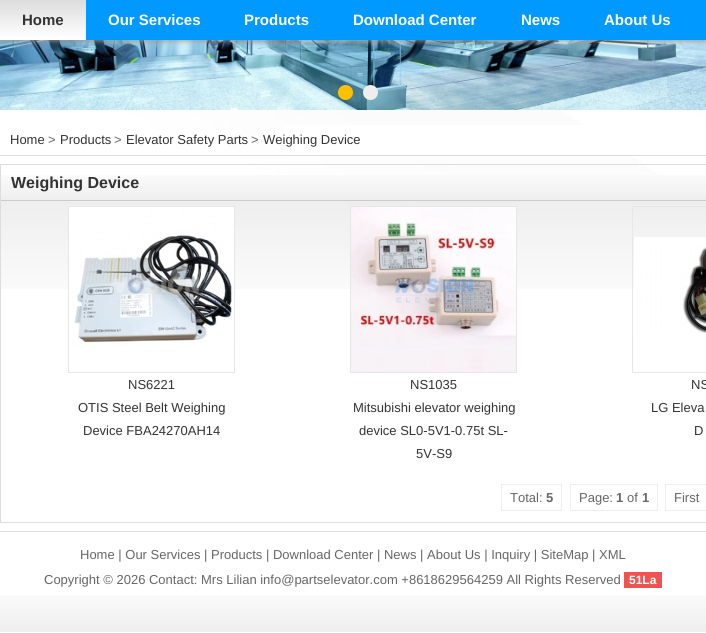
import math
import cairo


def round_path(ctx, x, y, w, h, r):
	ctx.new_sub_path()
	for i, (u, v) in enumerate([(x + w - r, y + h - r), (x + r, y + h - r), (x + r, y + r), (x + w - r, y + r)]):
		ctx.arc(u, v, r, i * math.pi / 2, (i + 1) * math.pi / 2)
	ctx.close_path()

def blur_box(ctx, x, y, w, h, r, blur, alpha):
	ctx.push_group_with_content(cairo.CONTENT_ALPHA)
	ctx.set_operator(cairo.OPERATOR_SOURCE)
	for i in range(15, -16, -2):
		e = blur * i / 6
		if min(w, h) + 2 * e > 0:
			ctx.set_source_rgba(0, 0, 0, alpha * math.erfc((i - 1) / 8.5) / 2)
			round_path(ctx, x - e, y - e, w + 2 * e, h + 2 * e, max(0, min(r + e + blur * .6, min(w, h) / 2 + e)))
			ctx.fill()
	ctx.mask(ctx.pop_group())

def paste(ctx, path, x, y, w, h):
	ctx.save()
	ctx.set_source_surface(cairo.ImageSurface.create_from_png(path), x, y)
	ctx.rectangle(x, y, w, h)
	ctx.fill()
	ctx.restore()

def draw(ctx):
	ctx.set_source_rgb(1, 1, 1)
	ctx.paint()
	paste(ctx, 'media/1.png', 118, 110, 588, 65)
	paste(ctx, 'media/3.png', 0, 40, 706, 70)
	ctx.set_source_rgb(0.6, 0.6, 0.6)
	blur_box(ctx, 0, 1, 706, 40, 0, 3, 1)
	ctx.set_source_rgb(0, 0.6, 1)
	ctx.rectangle(86, 0, 620, 40)
	ctx.fill()
	paste(ctx, 'media/2.png', 0, 0, 86, 40)
	ctx.select_font_face('Liberation Sans', cairo.FONT_SLANT_NORMAL, cairo.FONT_WEIGHT_BOLD)
	ctx.set_font_size(15)
	ctx.set_source_rgb(0.2, 0.2, 0.2)
	ctx.move_to(22, 25)
	ctx.show_text('Home')
	ctx.set_source_rgb(1, 1, 1)
	for x, y, s in [
		(108, 25, 'Our Services'),
		(244, 25, 'Products'),
		(353, 25, 'Download Center'),
		(521, 25, 'News'),
		(604, 25, 'About Us'),
	]:
		ctx.move_to(x, y)
		ctx.show_text(s)
	ctx.set_source_rgb(1, 0.753, 0)
	ctx.new_path()
	ctx.arc(345.5, 92.5, 7.5, 0, 2 * math.pi)
	ctx.fill()
	ctx.set_source_rgb(0.933, 0.933, 0.933)
	ctx.arc(370.5, 92.5, 7.5, 0, 2 * math.pi)
	ctx.fill()
	ctx.set_source_rgb(1, 1, 1)
	ctx.rectangle(285, 125, 342, 30)
	ctx.fill()
	ctx.set_source_rgb(0.867, 0.867, 0.867)
	ctx.rectangle(0, 155, 706, 1)
	ctx.fill()
	ctx.select_font_face('Liberation Sans')
	ctx.set_font_size(13)
	ctx.set_source_rgb(0.2, 0.2, 0.2)
	ctx.move_to(10, 144)
	ctx.show_text('Home')
	ctx.set_source_rgb(0.4, 0.4, 0.4)
	ctx.move_to(48, 144)
	ctx.show_text('>')
	ctx.set_source_rgb(0.2, 0.2, 0.2)
	ctx.move_to(60, 144)
	ctx.show_text('Products')
	ctx.set_source_rgb(0.4, 0.4, 0.4)
	ctx.move_to(114, 144)
	ctx.show_text('>')
	ctx.set_source_rgb(0.2, 0.2, 0.2)
	ctx.move_to(126, 144)
	ctx.show_text('Elevator Safety Parts')
	ctx.set_source_rgb(0.4, 0.4, 0.4)
	ctx.move_to(251, 144)
	ctx.show_text('>')
	ctx.set_source_rgb(0.2, 0.2, 0.2)
	ctx.move_to(263, 144)
	ctx.show_text('Weighing Device')
	paste(ctx, 'media/4.png', 1, 175, 705, 114)
	ctx.rectangle(0.5, 164.5, 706, 358)
	ctx.set_source_rgb(0.867, 0.867, 0.867)
	ctx.set_line_width(1)
	ctx.stroke()
	ctx.set_source_rgb(0.8, 0.8, 0.8)
	ctx.rectangle(1, 200, 705, 1)
	ctx.fill()
	ctx.select_font_face('Liberation Sans', cairo.FONT_SLANT_NORMAL, cairo.FONT_WEIGHT_BOLD)
	ctx.set_font_size(16)
	ctx.set_source_rgb(0.2, 0.2, 0.2)
	ctx.move_to(11, 188)
	ctx.show_text('Weighing Device')
	ctx.rectangle(68.5, 206.5, 166, 166)
	ctx.set_source_rgb(0.906, 0.906, 0.906)
	ctx.stroke()
	paste(ctx, 'media/5.png', 69, 207, 165, 142)
	ctx.select_font_face('Liberation Sans')
	ctx.set_font_size(13)
	ctx.set_source_rgb(0.2, 0.2, 0.2)
	for x, y, s in [
		(128, 389, 'NS6221'),
		(78, 412, 'OTIS Steel Belt Weighing'),
		(83, 435, 'Device FBA24270AH14'),
	]:
		ctx.move_to(x, y)
		ctx.show_text(s)
	ctx.rectangle(350.5, 206.5, 166, 166)
	ctx.set_source_rgb(0.906, 0.906, 0.906)
	ctx.stroke()
	paste(ctx, 'media/6.png', 351, 207, 165, 165)
	ctx.set_source_rgb(0.2, 0.2, 0.2)
	for x, y, s in [
		(410, 389, 'NS1035'),
		(353, 412, 'Mitsubishi elevator weighing'),
		(359, 435, 'device SL0-5V1-0.75t SL-'),
		(416, 458, '5V-S9'),
	]:
		ctx.move_to(x, y)
		ctx.show_text(s)
	ctx.rectangle(632.5, 206.5, 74, 166)
	ctx.set_source_rgb(0.906, 0.906, 0.906)
	ctx.stroke()
	paste(ctx, 'media/7.png', 634, 237, 72, 97)
	ctx.set_source_rgb(0.2, 0.2, 0.2)
	for x, y, s in [
		(691, 389, 'NS'),
		(651, 412, 'LG Eleva'),
		(694, 435, 'D'),
	]:
		ctx.move_to(x, y)
		ctx.show_text(s)
	ctx.set_source_rgb(0.4, 0.4, 0.4)
	ctx.move_to(510, 502)
	ctx.show_text('Total:')
	ctx.set_source_rgb(0.933, 0.933, 0.933)
	ctx.rectangle(501, 484, 61, 1)
	ctx.rectangle(501, 510, 45, 1)
	ctx.rectangle(501, 484, 1, 27)
	ctx.fill()
	ctx.select_font_face('Liberation Sans', cairo.FONT_SLANT_NORMAL, cairo.FONT_WEIGHT_BOLD)
	ctx.set_source_rgb(0.4, 0.4, 0.4)
	ctx.move_to(546, 502)
	ctx.show_text('5')
	ctx.set_source_rgb(0.933, 0.933, 0.933)
	ctx.rectangle(561, 484, 1, 27)
	ctx.fill()
	ctx.rectangle(546, 510, 16, 1)
	ctx.fill()
	ctx.select_font_face('Liberation Sans')
	ctx.set_source_rgb(0.4, 0.4, 0.4)
	ctx.move_to(579, 502)
	ctx.show_text('Page:')
	ctx.set_source_rgb(0.933, 0.933, 0.933)
	ctx.rectangle(570, 510, 72, 1)
	ctx.rectangle(570, 484, 88, 1)
	ctx.rectangle(570, 484, 1, 27)
	ctx.fill()
	ctx.select_font_face('Liberation Sans', cairo.FONT_SLANT_NORMAL, cairo.FONT_WEIGHT_BOLD)
	ctx.set_source_rgb(0.4, 0.4, 0.4)
	ctx.move_to(616, 502)
	ctx.show_text('1')
	ctx.select_font_face('Liberation Sans')
	ctx.move_to(627, 502)
	ctx.show_text('of')
	ctx.select_font_face('Liberation Sans', cairo.FONT_SLANT_NORMAL, cairo.FONT_WEIGHT_BOLD)
	ctx.move_to(642, 502)
	ctx.show_text('1')
	ctx.set_source_rgb(0.933, 0.933, 0.933)
	ctx.rectangle(657, 484, 1, 27)
	ctx.fill()
	ctx.rectangle(642, 510, 16, 1)
	ctx.fill()
	ctx.rectangle(665.5, 484.5, 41, 26)
	ctx.stroke()
	ctx.select_font_face('Liberation Sans')
	ctx.set_source_rgb(0.4, 0.4, 0.4)
	ctx.move_to(674, 502)
	ctx.show_text('First')
	paste(ctx, 'media/8.png', 0, 595, 706, 37)
	ctx.set_source_rgb(0.867, 0.867, 0.867)
	ctx.rectangle(0, 531, 706, 1)
	ctx.fill()
	ctx.set_source_rgb(0.4, 0.4, 0.4)
	ctx.move_to(80, 559)
	ctx.show_text('Home | Our Services | Products | Download Center | News | About Us | Inquiry | SiteMap | XML')
	ctx.move_to(44, 584)
	ctx.show_text('Copyright © 2026 Contact: Mrs Lilian info@partselevator.com +8618629564259 All Rights Reserved')
	ctx.set_source_rgb(0.937, 0.325, 0.314)
	ctx.rectangle(624, 572, 38, 16)
	ctx.fill()
	ctx.select_font_face('Liberation Sans', cairo.FONT_SLANT_NORMAL, cairo.FONT_WEIGHT_BOLD)
	ctx.set_font_size(12)
	ctx.set_source_rgb(1, 1, 1)
	ctx.move_to(629, 584)
	ctx.show_text('51La')


surface = cairo.ImageSurface(cairo.FORMAT_RGB24, 706, 633)
ctx = cairo.Context(surface)
options = cairo.FontOptions()
options.set_hint_metrics(cairo.HINT_METRICS_OFF)
options.set_hint_style(cairo.HINT_STYLE_NONE)
ctx.set_font_options(options)
ctx.set_miter_limit(4)
draw(ctx)
surface.write_to_png('image.png')
